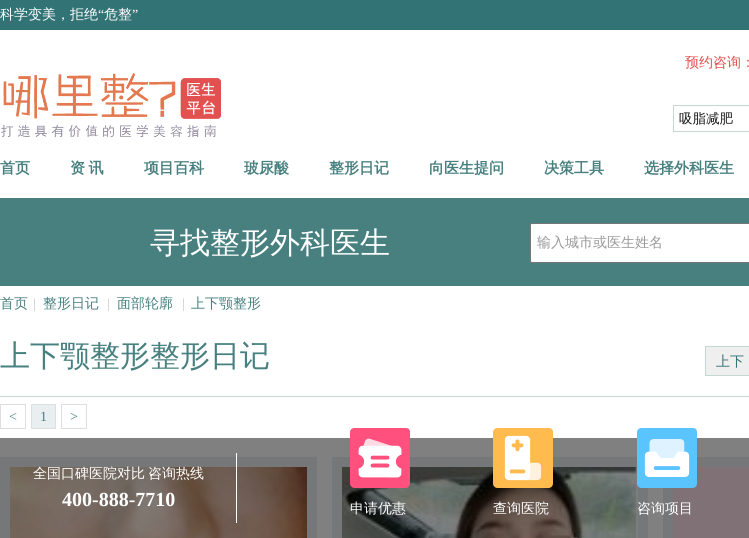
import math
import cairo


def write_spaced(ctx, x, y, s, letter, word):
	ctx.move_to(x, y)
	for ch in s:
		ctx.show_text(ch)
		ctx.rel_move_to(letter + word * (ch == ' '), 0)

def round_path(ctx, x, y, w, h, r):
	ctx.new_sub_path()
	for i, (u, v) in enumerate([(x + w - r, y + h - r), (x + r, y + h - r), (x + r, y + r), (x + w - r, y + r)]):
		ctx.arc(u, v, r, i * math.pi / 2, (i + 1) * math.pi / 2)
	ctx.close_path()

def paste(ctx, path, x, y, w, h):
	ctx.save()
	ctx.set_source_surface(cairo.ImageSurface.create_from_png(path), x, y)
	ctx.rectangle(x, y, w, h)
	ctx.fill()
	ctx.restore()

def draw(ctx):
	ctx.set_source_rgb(1, 1, 1)
	ctx.paint()
	ctx.set_source_rgb(0.502, 0.502, 0.502)
	ctx.rectangle(0, 438, 749, 100)
	ctx.fill()
	ctx.set_source_rgb(0.196, 0.451, 0.459)
	ctx.rectangle(0, 0, 749, 30)
	ctx.fill()
	ctx.select_font_face('WenQuanYi Zen Hei Medium')
	ctx.set_font_size(14)
	ctx.set_source_rgb(1, 1, 1)
	ctx.move_to(0, 19)
	ctx.show_text('科学变美，拒绝')
	ctx.select_font_face('Liberation Serif')
	ctx.move_to(98, 19)
	ctx.show_text('“')
	ctx.select_font_face('WenQuanYi Zen Hei Medium')
	ctx.move_to(104, 19)
	ctx.show_text('危整')
	ctx.select_font_face('Liberation Serif')
	ctx.move_to(132, 19)
	ctx.show_text('”')
	paste(ctx, 'media/1.png', 1, 73, 220, 64)
	ctx.select_font_face('WenQuanYi Zen Hei Medium')
	ctx.set_source_rgb(0.886, 0.314, 0.314)
	ctx.move_to(685, 67)
	ctx.show_text('预约咨询：')
	ctx.rectangle(673.5, 105.5, 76, 26)
	ctx.set_source_rgb(0.769, 0.843, 0.82)
	ctx.set_line_width(1)
	ctx.stroke()
	ctx.set_font_size(13.5)
	ctx.set_source_rgb(0.094, 0.094, 0.094)
	ctx.move_to(679, 123)
	ctx.show_text('吸脂减肥')
	ctx.select_font_face('WenQuanYi Zen Hei', cairo.FONT_SLANT_NORMAL, cairo.FONT_WEIGHT_BOLD)
	ctx.set_font_size(15)
	ctx.set_source_rgb(0.278, 0.502, 0.498)
	ctx.move_to(0, 173)
	ctx.show_text('首页')
	write_spaced(ctx, 70, 173, '资 讯', 0, -1)
	for x, y, s in [
		(144, 173, '项目百科'),
		(244, 173, '玻尿酸'),
		(329, 173, '整形日记'),
		(429, 173, '向医生提问'),
		(544, 173, '决策工具'),
		(644, 173, '选择外科医生'),
	]:
		ctx.move_to(x, y)
		ctx.show_text(s)
	ctx.rectangle(0, 198, 749, 88)
	ctx.fill()
	ctx.select_font_face('WenQuanYi Zen Hei Medium')
	ctx.set_font_size(30)
	ctx.set_source_rgb(1, 1, 1)
	ctx.move_to(150, 253)
	ctx.show_text('寻找整形外科医生')
	round_path(ctx, 530.5, 223.5, 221, 39, 1.5)
	ctx.fill_preserve()
	ctx.set_source_rgb(0.463, 0.463, 0.463)
	ctx.stroke()
	ctx.set_font_size(14)
	ctx.set_source_rgb(0.6, 0.6, 0.6)
	ctx.move_to(537, 247)
	ctx.show_text('输入城市或医生姓名')
	ctx.set_source_rgb(0.278, 0.502, 0.498)
	ctx.move_to(0, 308)
	ctx.show_text('首页')
	ctx.select_font_face('Liberation Serif')
	ctx.set_source_rgb(0.78, 0.78, 0.78)
	ctx.move_to(33, 308)
	ctx.show_text('|')
	ctx.select_font_face('WenQuanYi Zen Hei Medium')
	ctx.set_source_rgb(0.278, 0.502, 0.498)
	ctx.move_to(43, 308)
	ctx.show_text('整形日记')
	ctx.select_font_face('Liberation Serif')
	ctx.set_source_rgb(0.78, 0.78, 0.78)
	ctx.move_to(107, 308)
	ctx.show_text('|')
	ctx.select_font_face('WenQuanYi Zen Hei Medium')
	ctx.set_source_rgb(0.278, 0.502, 0.498)
	ctx.move_to(117, 308)
	ctx.show_text('面部轮廓')
	ctx.select_font_face('Liberation Serif')
	ctx.set_source_rgb(0.78, 0.78, 0.78)
	ctx.move_to(182, 308)
	ctx.show_text('|')
	ctx.select_font_face('WenQuanYi Zen Hei Medium')
	ctx.set_source_rgb(0.278, 0.502, 0.498)
	ctx.move_to(191, 308)
	ctx.show_text('上下颚整形')
	ctx.set_font_size(30)
	ctx.move_to(0, 366)
	ctx.show_text('上下颚整形整形日记')
	ctx.set_source_rgb(0.937, 0.937, 0.937)
	ctx.rectangle(705.5, 346.5, 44, 29)
	ctx.fill_preserve()
	ctx.set_source_rgb(0.769, 0.843, 0.82)
	ctx.stroke()
	ctx.set_font_size(14)
	ctx.set_source_rgb(0.196, 0.451, 0.459)
	ctx.move_to(716, 366)
	ctx.show_text('上下')
	ctx.set_source_rgb(0.769, 0.843, 0.82)
	ctx.rectangle(0, 396, 749, 1)
	ctx.fill()
	ctx.rectangle(0.5, 404.5, 25, 24)
	ctx.set_source_rgb(0.871, 0.871, 0.871)
	ctx.stroke()
	ctx.select_font_face('Liberation Serif')
	ctx.set_source_rgb(0.278, 0.502, 0.498)
	ctx.move_to(9, 421)
	ctx.show_text('<')
	ctx.set_source_rgb(0.914, 0.937, 0.941)
	ctx.rectangle(31.5, 404.5, 24, 24)
	ctx.fill_preserve()
	ctx.set_source_rgb(0.871, 0.871, 0.871)
	ctx.stroke()
	ctx.set_source_rgb(0.278, 0.502, 0.498)
	ctx.move_to(40, 421)
	ctx.show_text('1')
	ctx.rectangle(61.5, 404.5, 25, 24)
	ctx.set_source_rgb(0.871, 0.871, 0.871)
	ctx.stroke()
	ctx.set_source_rgb(0.278, 0.502, 0.498)
	ctx.move_to(70, 421)
	ctx.show_text('>')
	ctx.set_source_rgb(0.459, 0.467, 0.475)
	ctx.rectangle(0, 457, 317, 81)
	ctx.fill()
	paste(ctx, 'media/2.png', 10, 467, 297, 71)
	ctx.rectangle(332, 457, 316, 81)
	ctx.fill()
	paste(ctx, 'media/3.png', 342, 467, 296, 71)
	ctx.rectangle(663, 457, 86, 81)
	ctx.fill()
	ctx.set_source_rgb(0.502, 0.443, 0.463)
	ctx.rectangle(673, 467, 76, 71)
	ctx.fill()
	ctx.select_font_face('WenQuanYi Zen Hei Medium')
	ctx.set_source_rgb(1, 1, 1)
	ctx.move_to(33, 478)
	ctx.show_text('全国口碑医院对比')
	ctx.move_to(148, 478)
	ctx.show_text('咨询热线')
	ctx.select_font_face('Liberation Serif', cairo.FONT_SLANT_NORMAL, cairo.FONT_WEIGHT_BOLD)
	ctx.set_font_size(20)
	ctx.move_to(62, 506)
	ctx.show_text('400-888-7710')
	ctx.rectangle(236, 453, 1, 70)
	ctx.fill()
	paste(ctx, 'media/4.png', 350, 428, 60, 60)
	ctx.select_font_face('WenQuanYi Zen Hei Medium')
	ctx.set_font_size(14)
	ctx.move_to(350, 513)
	ctx.show_text('申请优惠')
	paste(ctx, 'media/5.png', 493, 428, 60, 60)
	ctx.move_to(493, 513)
	ctx.show_text('查询医院')
	paste(ctx, 'media/6.png', 637, 428, 60, 60)
	ctx.move_to(637, 513)
	ctx.show_text('咨询项目')


surface = cairo.ImageSurface(cairo.FORMAT_RGB24, 749, 538)
ctx = cairo.Context(surface)
options = cairo.FontOptions()
options.set_hint_metrics(cairo.HINT_METRICS_OFF)
options.set_hint_style(cairo.HINT_STYLE_NONE)
ctx.set_font_options(options)
ctx.set_miter_limit(4)
draw(ctx)
surface.write_to_png('image.png')
